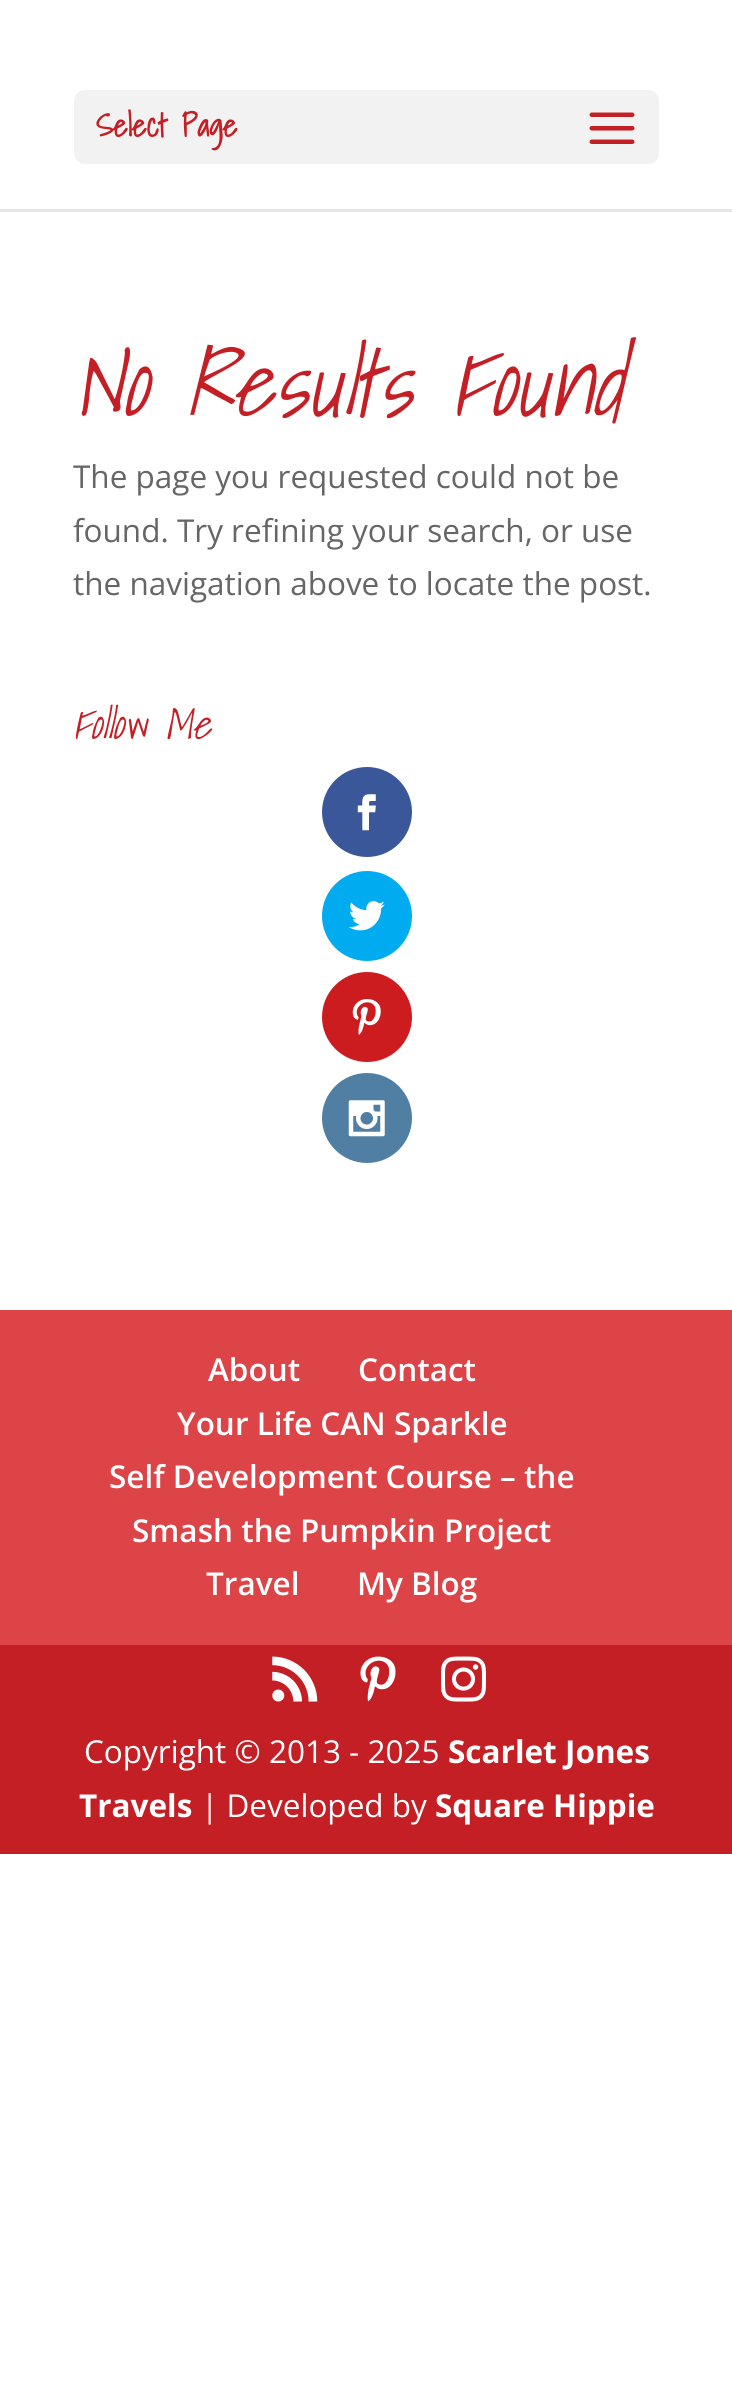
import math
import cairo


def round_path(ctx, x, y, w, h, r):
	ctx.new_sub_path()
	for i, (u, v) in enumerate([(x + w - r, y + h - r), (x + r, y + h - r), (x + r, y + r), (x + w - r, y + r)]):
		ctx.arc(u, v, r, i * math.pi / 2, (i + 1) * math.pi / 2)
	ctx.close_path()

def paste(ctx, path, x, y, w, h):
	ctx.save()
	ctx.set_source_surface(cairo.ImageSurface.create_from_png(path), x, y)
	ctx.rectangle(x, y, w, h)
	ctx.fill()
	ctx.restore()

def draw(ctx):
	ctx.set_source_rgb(1, 1, 1)
	ctx.paint()
	ctx.set_source_rgb(0.902, 0.902, 0.902)
	ctx.new_path()
	ctx.move_to(0, 209)
	ctx.line_to(0, 212)
	ctx.line_to(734, 212)
	ctx.line_to(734, 2)
	ctx.line_to(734, 209)
	ctx.close_path()
	ctx.fill()
	ctx.set_source_rgb(0.949, 0.949, 0.949)
	round_path(ctx, 74, 90, 585, 74, 11)
	ctx.fill()
	ctx.select_font_face('Shadows Into Light', cairo.FONT_SLANT_NORMAL, cairo.FONT_WEIGHT_BOLD)
	ctx.set_font_size(31.5)
	ctx.set_source_rgb(0.769, 0.122, 0.145)
	ctx.move_to(96, 137)
	ctx.show_text('Select Page')
	paste(ctx, 'media/1.png', 589, 112, 46, 32)
	ctx.select_font_face('Shadows Into Light Light', cairo.FONT_SLANT_ITALIC)
	ctx.set_font_size(90)
	ctx.move_to(73, 416)
	ctx.show_text('No Results Found')
	ctx.select_font_face('Open Sans')
	ctx.set_font_size(31.5)
	ctx.set_source_rgb(0.4, 0.4, 0.4)
	for x, y, s in [
		(73, 488, 'The page you requested could not be'),
		(73, 542, 'found. Try refining your search, or use'),
		(73, 595, 'the navigation above to locate the post.'),
	]:
		ctx.move_to(x, y)
		ctx.show_text(s)
	ctx.select_font_face('Shadows Into Light Light', cairo.FONT_SLANT_ITALIC)
	ctx.set_font_size(40.5)
	ctx.set_source_rgb(0.769, 0.122, 0.145)
	ctx.move_to(73, 739)
	ctx.show_text('Follow Me')
	ctx.set_source_rgb(0.227, 0.341, 0.604)
	ctx.new_path()
	ctx.arc(367, 812, 45, 0, 2 * math.pi)
	ctx.fill()
	paste(ctx, 'media/2.png', 357, 794, 19, 37)
	ctx.set_source_rgb(0, 0.671, 0.941)
	ctx.arc(367, 916, 45, 0, 2 * math.pi)
	ctx.fill()
	paste(ctx, 'media/3.png', 349, 901, 36, 30)
	ctx.set_source_rgb(0.804, 0.11, 0.122)
	ctx.arc(367, 1017, 45, 0, 2 * math.pi)
	ctx.fill()
	paste(ctx, 'media/4.png', 352, 999, 29, 36)
	ctx.set_source_rgb(0.318, 0.498, 0.643)
	ctx.arc(367, 1118, 45, 0, 2 * math.pi)
	ctx.fill()
	paste(ctx, 'media/5.png', 348, 1100, 37, 37)
	ctx.set_source_rgb(0.867, 0.267, 0.282)
	ctx.rectangle(0, 1310, 732, 335)
	ctx.fill()
	ctx.select_font_face('Open Sans SemiBold')
	ctx.set_font_size(31.5)
	ctx.set_source_rgb(1, 1, 1)
	for x, y, s in [
		(208, 1381, 'About'),
		(358, 1381, 'Contact'),
		(177, 1435, 'Your Life CAN Sparkle'),
		(109, 1488, 'Self Development Course – the'),
		(132, 1542, 'Smash the Pumpkin Project'),
		(206, 1595, 'Travel'),
		(357, 1595, 'My Blog'),
	]:
		ctx.move_to(x, y)
		ctx.show_text(s)
	ctx.set_source_rgb(0.769, 0.122, 0.145)
	ctx.rectangle(0, 1645, 732, 209)
	ctx.fill()
	paste(ctx, 'media/6.png', 272, 1656, 46, 46)
	paste(ctx, 'media/7.png', 360, 1656, 36, 46)
	paste(ctx, 'media/8.png', 441, 1656, 45, 46)
	ctx.select_font_face('Open Sans')
	ctx.set_source_rgb(1, 1, 1)
	ctx.move_to(84, 1763)
	ctx.show_text('Copyright © 2013 - 2025')
	ctx.select_font_face('Open Sans', cairo.FONT_SLANT_NORMAL, cairo.FONT_WEIGHT_BOLD)
	ctx.move_to(448, 1763)
	ctx.show_text('Scarlet Jones')
	ctx.move_to(79, 1817)
	ctx.show_text('Travels')
	ctx.select_font_face('Open Sans')
	ctx.move_to(201, 1817)
	ctx.show_text('| Developed by')
	ctx.select_font_face('Open Sans', cairo.FONT_SLANT_NORMAL, cairo.FONT_WEIGHT_BOLD)
	ctx.move_to(435, 1817)
	ctx.show_text('Square Hippie')


surface = cairo.ImageSurface(cairo.FORMAT_RGB24, 732, 2387)
ctx = cairo.Context(surface)
options = cairo.FontOptions()
options.set_hint_metrics(cairo.HINT_METRICS_OFF)
options.set_hint_style(cairo.HINT_STYLE_NONE)
ctx.set_font_options(options)
ctx.set_miter_limit(4)
draw(ctx)
surface.write_to_png('image.png')
